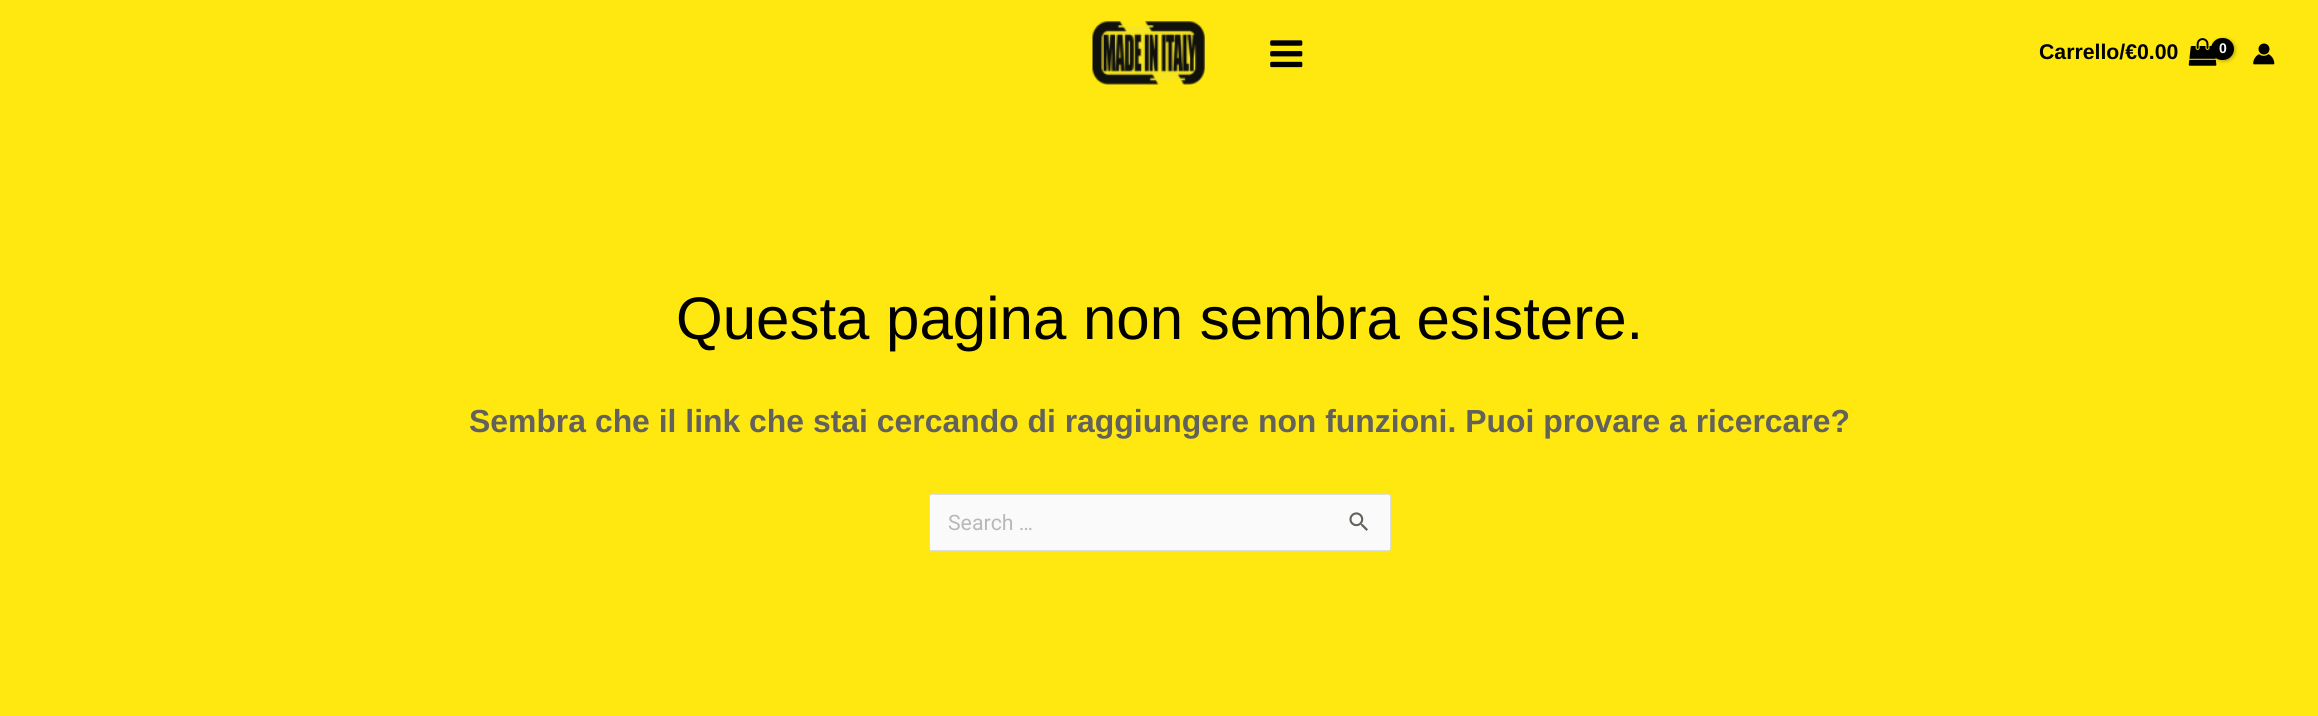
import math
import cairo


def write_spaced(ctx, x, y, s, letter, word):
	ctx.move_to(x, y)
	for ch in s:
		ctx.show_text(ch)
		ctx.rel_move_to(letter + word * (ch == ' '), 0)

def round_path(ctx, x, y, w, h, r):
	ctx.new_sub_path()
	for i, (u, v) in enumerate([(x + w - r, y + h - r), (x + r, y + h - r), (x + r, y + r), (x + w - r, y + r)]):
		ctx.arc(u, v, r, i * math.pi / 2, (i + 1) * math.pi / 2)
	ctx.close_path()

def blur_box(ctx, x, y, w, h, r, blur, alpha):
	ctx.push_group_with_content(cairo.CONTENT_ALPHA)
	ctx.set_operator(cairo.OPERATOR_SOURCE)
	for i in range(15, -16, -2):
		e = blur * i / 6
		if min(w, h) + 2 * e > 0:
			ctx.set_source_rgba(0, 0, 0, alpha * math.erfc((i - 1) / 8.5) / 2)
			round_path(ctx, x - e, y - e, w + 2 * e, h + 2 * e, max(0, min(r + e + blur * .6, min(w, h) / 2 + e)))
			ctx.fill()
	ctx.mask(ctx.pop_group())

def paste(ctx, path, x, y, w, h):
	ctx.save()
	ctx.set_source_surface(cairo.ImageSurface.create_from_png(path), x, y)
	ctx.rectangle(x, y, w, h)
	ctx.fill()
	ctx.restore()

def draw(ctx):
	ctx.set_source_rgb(1, 0.91, 0.063)
	ctx.paint()
	paste(ctx, 'media/1.png', 1092, 21, 113, 64)
	paste(ctx, 'media/2.png', 1270, 40, 33, 28)
	ctx.select_font_face('Liberation Sans', cairo.FONT_SLANT_NORMAL, cairo.FONT_WEIGHT_BOLD)
	ctx.set_font_size(21.25)
	ctx.set_source_rgb(0, 0, 0)
	ctx.move_to(2039, 59)
	ctx.show_text('Carrello/€0.00')
	paste(ctx, 'media/3.png', 2188, 38, 29, 28)
	ctx.set_source_rgb(0, 0, 0)
	blur_box(ctx, 2213, 39, 22, 22, 11, 2, 0.3)
	ctx.set_source_rgb(0, 0, 0)
	round_path(ctx, 2211, 38, 23, 22, 11)
	ctx.fill()
	ctx.set_font_size(14)
	ctx.set_source_rgb(1, 1, 1)
	write_spaced(ctx, 2219, 53, '0', -1, 0)
	paste(ctx, 'media/4.png', 2253, 43, 22, 22)
	ctx.select_font_face('Liberation Sans')
	ctx.set_font_size(60)
	ctx.set_source_rgb(0, 0, 0)
	ctx.move_to(676, 339)
	ctx.show_text('Questa pagina non sembra esistere.')
	ctx.select_font_face('Liberation Sans', cairo.FONT_SLANT_NORMAL, cairo.FONT_WEIGHT_BOLD)
	ctx.set_font_size(31.9)
	ctx.set_source_rgb(0.384, 0.38, 0.361)
	ctx.move_to(469, 432)
	ctx.show_text('Sembra che il link che stai cercando di raggiungere non funzioni. Puoi provare a ricercare?')
	ctx.set_source_rgb(0.98, 0.98, 0.98)
	round_path(ctx, 929.5, 494.5, 461, 56, 2)
	ctx.fill_preserve()
	ctx.set_source_rgb(0.867, 0.867, 0.867)
	ctx.set_line_width(1)
	ctx.stroke()
	ctx.select_font_face('Roboto')
	ctx.set_font_size(21.25)
	ctx.set_source_rgb(0.722, 0.722, 0.722)
	ctx.move_to(948, 530)
	ctx.show_text('Search …')
	paste(ctx, 'media/5.png', 1349, 512, 19, 19)


surface = cairo.ImageSurface(cairo.FORMAT_RGB24, 2318, 716)
ctx = cairo.Context(surface)
options = cairo.FontOptions()
options.set_hint_metrics(cairo.HINT_METRICS_OFF)
options.set_hint_style(cairo.HINT_STYLE_NONE)
ctx.set_font_options(options)
ctx.set_miter_limit(4)
draw(ctx)
surface.write_to_png('image.png')
